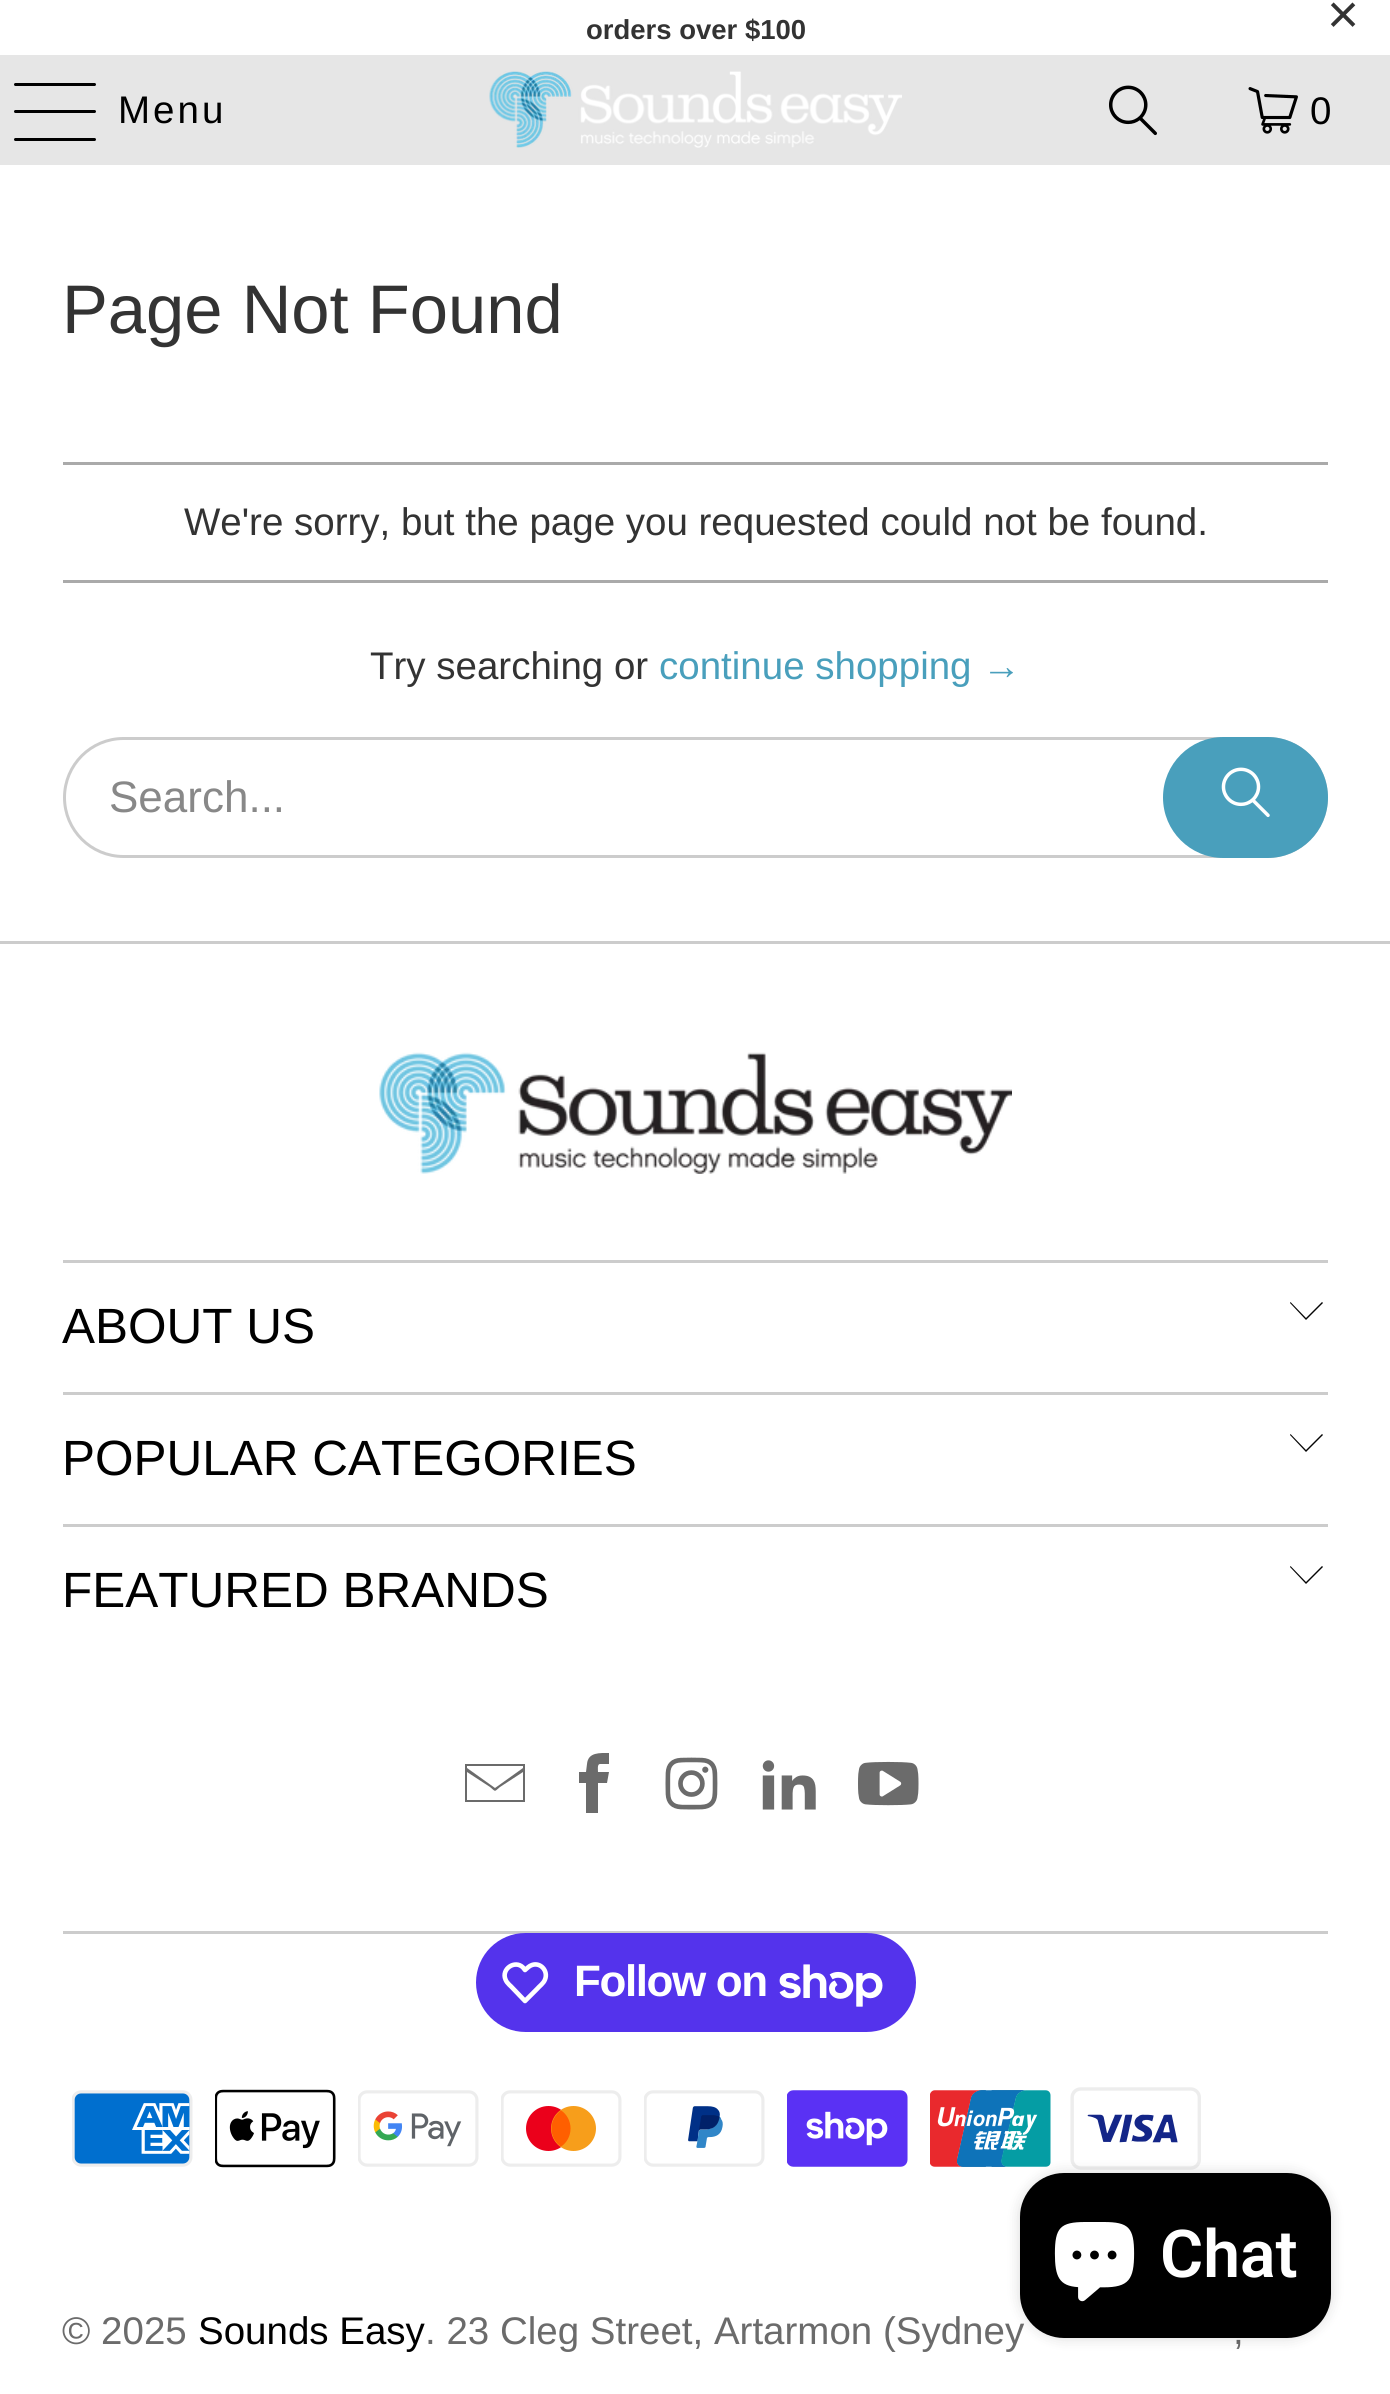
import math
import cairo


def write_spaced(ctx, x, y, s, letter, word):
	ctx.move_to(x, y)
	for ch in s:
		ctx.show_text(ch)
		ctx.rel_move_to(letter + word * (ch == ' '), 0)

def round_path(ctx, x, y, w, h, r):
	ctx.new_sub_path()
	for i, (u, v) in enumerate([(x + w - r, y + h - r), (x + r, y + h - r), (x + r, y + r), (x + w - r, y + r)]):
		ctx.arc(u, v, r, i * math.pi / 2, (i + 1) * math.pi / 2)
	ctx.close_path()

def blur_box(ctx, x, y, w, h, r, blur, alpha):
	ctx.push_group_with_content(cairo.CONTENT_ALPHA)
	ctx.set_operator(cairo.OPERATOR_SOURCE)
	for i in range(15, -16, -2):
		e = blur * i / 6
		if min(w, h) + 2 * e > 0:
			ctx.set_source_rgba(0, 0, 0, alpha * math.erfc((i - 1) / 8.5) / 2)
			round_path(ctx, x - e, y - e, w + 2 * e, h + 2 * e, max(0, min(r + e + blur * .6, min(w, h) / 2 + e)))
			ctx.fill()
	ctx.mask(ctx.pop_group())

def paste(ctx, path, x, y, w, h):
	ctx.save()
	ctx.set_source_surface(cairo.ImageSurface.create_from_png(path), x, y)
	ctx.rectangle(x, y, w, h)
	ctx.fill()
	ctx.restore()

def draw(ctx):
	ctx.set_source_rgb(1, 1, 1)
	ctx.paint()
	ctx.select_font_face('Liberation Sans')
	ctx.set_font_size(55)
	ctx.set_source_rgb(0.2, 0.2, 0.2)
	ctx.move_to(1327, 33)
	ctx.show_text('×')
	ctx.select_font_face('Liberation Sans', cairo.FONT_SLANT_NORMAL, cairo.FONT_WEIGHT_BOLD)
	ctx.set_font_size(27.5)
	ctx.move_to(586, 39)
	ctx.show_text('orders over $100')
	ctx.set_source_rgb(0.902, 0.902, 0.902)
	ctx.rectangle(0, 55, 1390, 110)
	ctx.fill()
	ctx.set_source_rgb(0, 0, 0)
	round_path(ctx, 14, 83, 82, 3, 1.5)
	ctx.fill()
	round_path(ctx, 14, 110, 82, 3, 1.5)
	ctx.fill()
	round_path(ctx, 14, 138, 82, 3, 1.5)
	ctx.fill()
	ctx.select_font_face('Liberation Sans')
	ctx.set_font_size(38.5)
	write_spaced(ctx, 118, 123, 'Menu', 3, 0)
	paste(ctx, 'media/1.png', 489, 71, 413, 77)
	paste(ctx, 'media/2.png', 1109, 85, 48, 51)
	paste(ctx, 'media/3.png', 1248, 87, 50, 47)
	write_spaced(ctx, 1310, 124, '0', 3, 0)
	ctx.set_font_size(68.75)
	ctx.set_source_rgb(0.2, 0.2, 0.2)
	ctx.move_to(62, 333)
	ctx.show_text('Page Not Found')
	ctx.set_source_rgb(0.667, 0.667, 0.667)
	ctx.rectangle(63, 462, 1265, 3)
	ctx.fill()
	ctx.rectangle(63, 580, 1265, 3)
	ctx.fill()
	ctx.set_font_size(38.5)
	ctx.set_source_rgb(0.2, 0.2, 0.2)
	ctx.move_to(184, 535)
	ctx.show_text('We\'re sorry, but the page you requested could not be found.')
	ctx.move_to(370, 679)
	ctx.show_text('Try searching or')
	ctx.set_source_rgb(0.286, 0.624, 0.737)
	ctx.move_to(659, 679)
	ctx.show_text('continue shopping →')
	round_path(ctx, 64.5, 738.5, 1262, 118, 59)
	ctx.set_source_rgb(0.8, 0.8, 0.8)
	ctx.set_line_width(3)
	ctx.stroke()
	ctx.set_font_size(44)
	ctx.set_source_rgb(0.533, 0.533, 0.533)
	ctx.move_to(109, 812)
	ctx.show_text('Search...')
	ctx.set_source_rgb(0.286, 0.624, 0.737)
	round_path(ctx, 1163, 737, 165, 121, 60.5)
	ctx.fill()
	paste(ctx, 'media/4.png', 1221, 767, 49, 51)
	ctx.set_source_rgb(0.8, 0.8, 0.8)
	ctx.rectangle(0, 941, 1390, 3)
	ctx.fill()
	paste(ctx, 'media/5.png', 379, 1052, 633, 122)
	ctx.rectangle(63, 1260, 1265, 3)
	ctx.fill()
	ctx.set_font_size(49.5)
	ctx.set_source_rgb(0, 0, 0)
	ctx.move_to(62, 1343)
	ctx.show_text('ABOUT US')
	ctx.set_source_rgb(0.016, 0.016, 0.016)
	ctx.new_path()
	ctx.move_to(1306, 1320)
	ctx.line_to(1290, 1303)
	ctx.line_to(1290.5, 1302)
	ctx.line_to(1306, 1318)
	ctx.line_to(1322, 1302)
	ctx.line_to(1323, 1303)
	ctx.close_path()
	ctx.fill()
	ctx.set_source_rgb(0.8, 0.8, 0.8)
	ctx.rectangle(63, 1392, 1265, 3)
	ctx.fill()
	ctx.set_source_rgb(0, 0, 0)
	ctx.move_to(62, 1475)
	ctx.show_text('POPULAR CATEGORIES')
	ctx.set_source_rgb(0.016, 0.016, 0.016)
	ctx.new_path()
	ctx.move_to(1306, 1452)
	ctx.line_to(1290, 1435)
	ctx.line_to(1290.5, 1434)
	ctx.line_to(1306, 1450)
	ctx.line_to(1322, 1434)
	ctx.line_to(1323, 1435)
	ctx.close_path()
	ctx.fill()
	ctx.set_source_rgb(0.8, 0.8, 0.8)
	ctx.rectangle(63, 1524, 1265, 3)
	ctx.fill()
	ctx.set_source_rgb(0, 0, 0)
	ctx.move_to(62, 1607)
	ctx.show_text('FEATURED BRANDS')
	ctx.set_source_rgb(0.016, 0.016, 0.016)
	ctx.new_path()
	ctx.move_to(1306, 1584)
	ctx.line_to(1290, 1567)
	ctx.line_to(1290.5, 1566)
	ctx.line_to(1306, 1582)
	ctx.line_to(1322, 1566)
	ctx.line_to(1323, 1567)
	ctx.close_path()
	ctx.fill()
	ctx.set_source_rgb(0.42, 0.42, 0.42)
	ctx.new_path()
	ctx.move_to(465, 1764)
	ctx.line_to(465, 1802)
	ctx.line_to(525, 1802)
	ctx.line_to(525, 1764)
	ctx.close_path()
	ctx.move_to(523, 1766)
	ctx.line_to(523, 1768)
	ctx.line_to(495, 1788)
	ctx.line_to(467, 1768)
	ctx.line_to(467, 1766)
	ctx.close_path()
	ctx.move_to(467, 1800)
	ctx.line_to(467, 1772)
	ctx.line_to(490, 1787)
	ctx.curve_to(496, 1792, 494, 1792, 500, 1787)
	ctx.line_to(523, 1772)
	ctx.line_to(523, 1800)
	ctx.close_path()
	ctx.fill()
	ctx.new_path()
	ctx.move_to(600, 1764)
	ctx.line_to(609, 1764)
	ctx.line_to(609, 1753)
	ctx.curve_to(600, 1753, 588, 1752, 587, 1764)
	ctx.line_to(586, 1772)
	ctx.line_to(579, 1772)
	ctx.line_to(579, 1783)
	ctx.line_to(586, 1783)
	ctx.line_to(586, 1813)
	ctx.line_to(598, 1813)
	ctx.line_to(598, 1783)
	ctx.line_to(607, 1783)
	ctx.line_to(609, 1772)
	ctx.line_to(598, 1772)
	ctx.curve_to(598, 1770, 597, 1764, 600, 1764)
	ctx.close_path()
	ctx.fill()
	paste(ctx, 'media/6.png', 665, 1757, 53, 53)
	paste(ctx, 'media/7.png', 762, 1760, 54, 50)
	paste(ctx, 'media/8.png', 858, 1761, 61, 45)
	ctx.set_source_rgb(0.8, 0.8, 0.8)
	ctx.rectangle(63, 1931, 1265, 3)
	ctx.fill()
	ctx.set_source_rgb(0.329, 0.2, 0.922)
	round_path(ctx, 476, 1933, 440, 99, 49.5)
	ctx.fill()
	ctx.new_path()
	ctx.move_to(523, 1967.5)
	ctx.line_to(525, 1970)
	ctx.curve_to(527.5, 1968, 529, 1966, 532, 1965)
	ctx.curve_to(540.5, 1962, 548.5, 1971, 545, 1979.5)
	ctx.curve_to(543.5, 1983.5, 539.5, 1986, 537, 1989)
	ctx.line_to(525, 2001)
	ctx.line_to(513.5, 1989)
	ctx.curve_to(511, 1986, 507, 1983.5, 505.5, 1979.5)
	ctx.curve_to(501, 1969, 515, 1959.5, 523, 1967.5)
	ctx.close_path()
	ctx.set_source_rgb(1, 1, 1)
	ctx.set_line_width(4.6)
	ctx.set_line_join(cairo.LINE_JOIN_ROUND)
	ctx.stroke()
	ctx.select_font_face('Liberation Sans', cairo.FONT_SLANT_NORMAL, cairo.FONT_WEIGHT_BOLD)
	ctx.set_font_size(44)
	write_spaced(ctx, 574, 1996, 'Follow on', -1.4, 0)
	paste(ctx, 'media/9.png', 779, 1964, 104, 43)
	paste(ctx, 'media/10.png', 72, 2090, 121, 77)
	paste(ctx, 'media/11.png', 215, 2089, 121, 79)
	paste(ctx, 'media/12.png', 358, 2090, 121, 77)
	paste(ctx, 'media/13.png', 501, 2090, 121, 77)
	paste(ctx, 'media/14.png', 644, 2090, 121, 77)
	paste(ctx, 'media/15.png', 787, 2090, 121, 77)
	paste(ctx, 'media/16.png', 930, 2090, 121, 77)
	paste(ctx, 'media/17.png', 1070, 2087, 131, 83)
	ctx.select_font_face('Liberation Sans')
	ctx.set_font_size(38.5)
	ctx.set_source_rgb(0.42, 0.42, 0.42)
	ctx.move_to(62, 2344)
	ctx.show_text('© 2025')
	ctx.set_source_rgb(0, 0, 0)
	ctx.move_to(198, 2344)
	ctx.show_text('Sounds Easy')
	ctx.set_source_rgb(0.42, 0.42, 0.42)
	ctx.move_to(425, 2344)
	ctx.show_text('. 23 Cleg Street, Artarmon (Sydney')
	ctx.move_to(1233, 2344)
	ctx.show_text(',')
	ctx.set_source_rgb(0, 0, 0)
	blur_box(ctx, 1020, 2173, 311, 165, 44, 7, 0.15)
	ctx.set_source_rgb(0, 0, 0)
	round_path(ctx, 1020, 2173, 311, 165, 44)
	ctx.fill()
	paste(ctx, 'media/18.png', 1054, 2222, 81, 80)
	ctx.select_font_face('Roboto SemiBold')
	ctx.set_font_size(66)
	ctx.set_source_rgb(1, 1, 1)
	ctx.move_to(1160, 2277)
	ctx.show_text('Chat')


surface = cairo.ImageSurface(cairo.FORMAT_RGB24, 1390, 2394)
ctx = cairo.Context(surface)
options = cairo.FontOptions()
options.set_hint_metrics(cairo.HINT_METRICS_OFF)
options.set_hint_style(cairo.HINT_STYLE_NONE)
ctx.set_font_options(options)
ctx.set_miter_limit(4)
draw(ctx)
surface.write_to_png('image.png')
